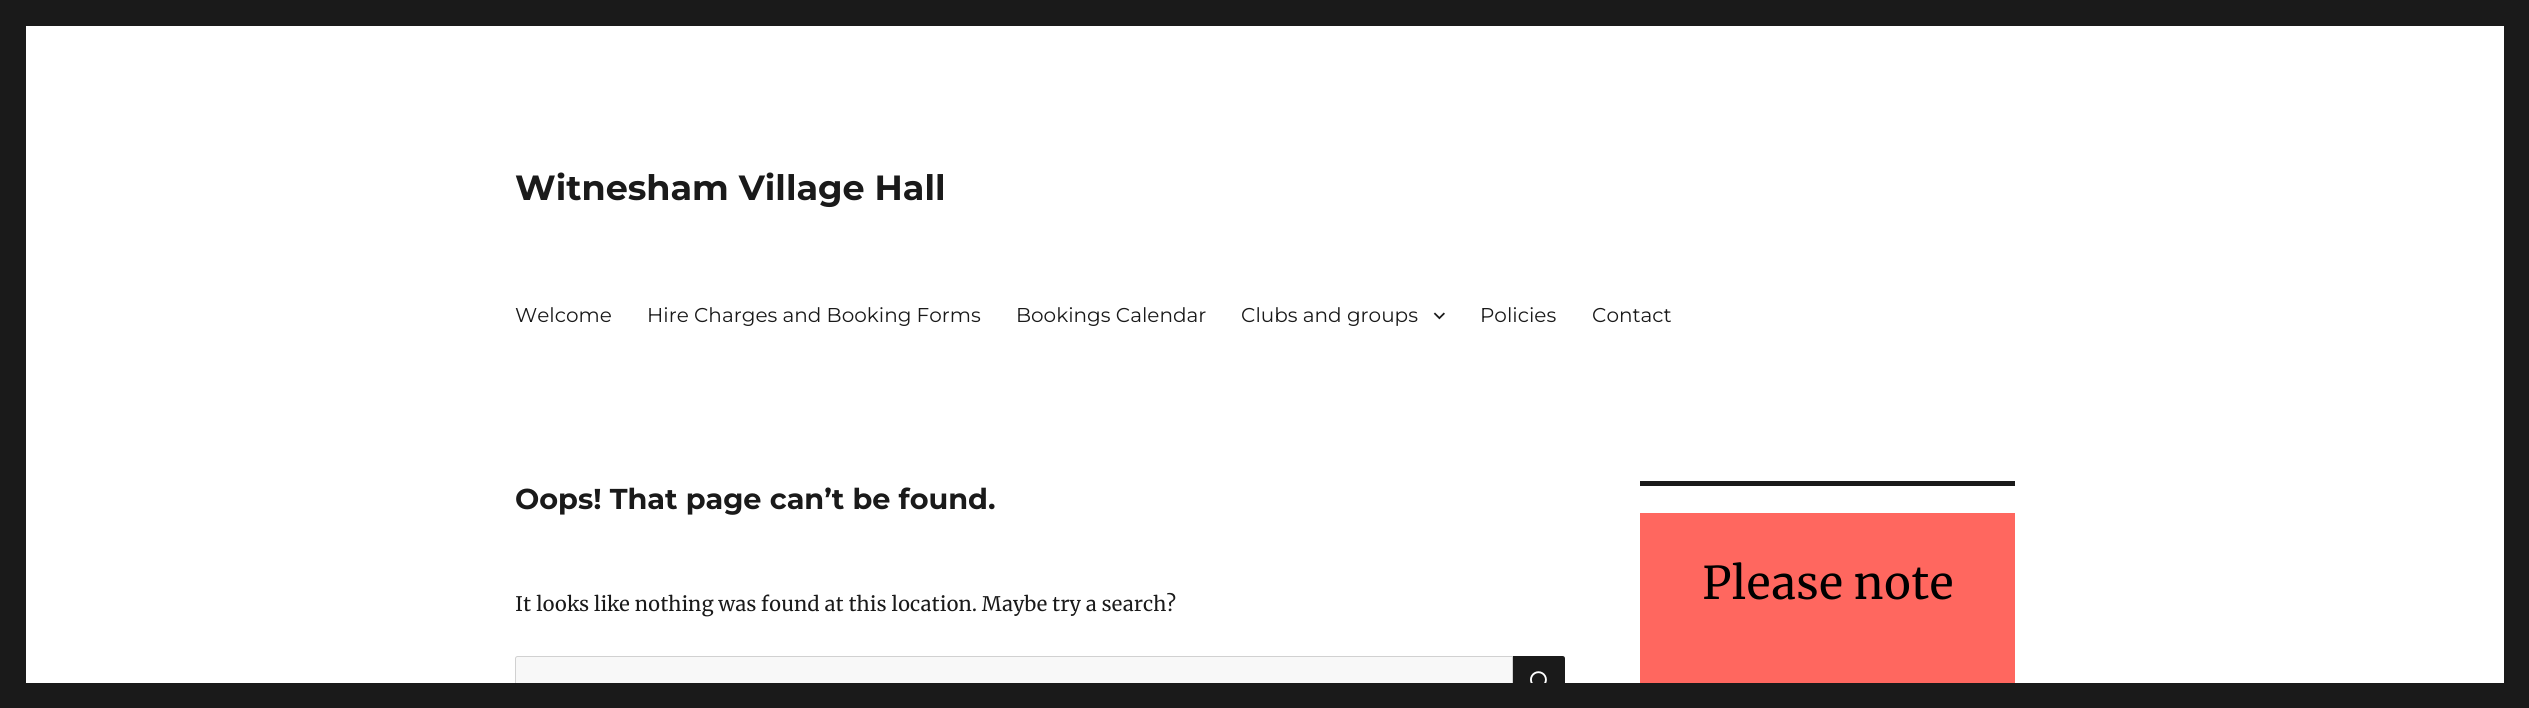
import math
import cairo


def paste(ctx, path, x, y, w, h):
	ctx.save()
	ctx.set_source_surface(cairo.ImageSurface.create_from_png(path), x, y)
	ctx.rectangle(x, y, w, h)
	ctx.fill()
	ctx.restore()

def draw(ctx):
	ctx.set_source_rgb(0.102, 0.102, 0.102)
	ctx.paint()
	ctx.set_source_rgb(1, 1, 1)
	ctx.rectangle(26, 26, 2478, 657)
	ctx.fill()
	ctx.select_font_face('Montserrat Thin')
	ctx.set_font_size(35)
	ctx.set_source_rgb(0.102, 0.102, 0.102)
	ctx.move_to(515, 200)
	ctx.show_text('Witnesham Village Hall')
	ctx.select_font_face('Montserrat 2 Thin')
	ctx.set_font_size(20)
	for x, y, s in [
		(515, 322, 'Welcome'),
		(647, 322, 'Hire Charges and Booking Forms'),
		(1016, 322, 'Bookings Calendar'),
		(1241, 322, 'Clubs and groups'),
	]:
		ctx.move_to(x, y)
		ctx.show_text(s)
	paste(ctx, 'media/1.png', 1433, 312, 12, 8)
	ctx.move_to(1480, 322)
	ctx.show_text('Policies')
	ctx.move_to(1592, 322)
	ctx.show_text('Contact')
	ctx.select_font_face('Montserrat Thin')
	ctx.set_font_size(28.75)
	ctx.move_to(515, 509)
	ctx.show_text('Oops! That page can’t be found.')
	ctx.select_font_face('Merriweather')
	ctx.set_font_size(20)
	ctx.move_to(515, 611)
	ctx.show_text('It looks like nothing was found at this location. Maybe try a search?')
	ctx.set_source_rgb(0.969, 0.969, 0.969)
	ctx.new_path()
	ctx.move_to(517.5, 656.5)
	ctx.line_to(1512.5, 656.5)
	ctx.line_to(1512.5, 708.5)
	ctx.line_to(517.5, 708.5)
	ctx.curve_to(516.5, 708.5, 515.5, 707.5, 515.5, 706.5)
	ctx.line_to(515.5, 658.5)
	ctx.curve_to(515.5, 657.5, 516.5, 656.5, 517.5, 656.5)
	ctx.close_path()
	ctx.fill_preserve()
	ctx.set_source_rgb(0.82, 0.82, 0.82)
	ctx.set_line_width(1)
	ctx.stroke()
	ctx.set_source_rgb(0.102, 0.102, 0.102)
	ctx.new_path()
	ctx.move_to(1513, 656)
	ctx.line_to(1562.5, 656)
	ctx.curve_to(1564, 656, 1565, 657, 1565, 658.5)
	ctx.line_to(1565, 706.5)
	ctx.curve_to(1565, 708, 1564, 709, 1562.5, 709)
	ctx.line_to(1513, 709)
	ctx.close_path()
	ctx.fill()
	paste(ctx, 'media/2.png', 1530, 671, 17, 12)
	ctx.rectangle(1640, 481, 375, 5)
	ctx.fill()
	ctx.set_source_rgb(1, 0.404, 0.373)
	ctx.rectangle(1640, 513, 375, 170)
	ctx.fill()
	ctx.set_font_size(45)
	ctx.set_source_rgb(0, 0, 0)
	ctx.move_to(1702, 599)
	ctx.show_text('Please note')
	ctx.set_source_rgb(0.102, 0.102, 0.102)
	ctx.rectangle(515, 683, 998, 25)
	ctx.fill()


surface = cairo.ImageSurface(cairo.FORMAT_RGB24, 2529, 708)
ctx = cairo.Context(surface)
options = cairo.FontOptions()
options.set_hint_metrics(cairo.HINT_METRICS_OFF)
options.set_hint_style(cairo.HINT_STYLE_NONE)
ctx.set_font_options(options)
ctx.set_miter_limit(4)
draw(ctx)
surface.write_to_png('image.png')
